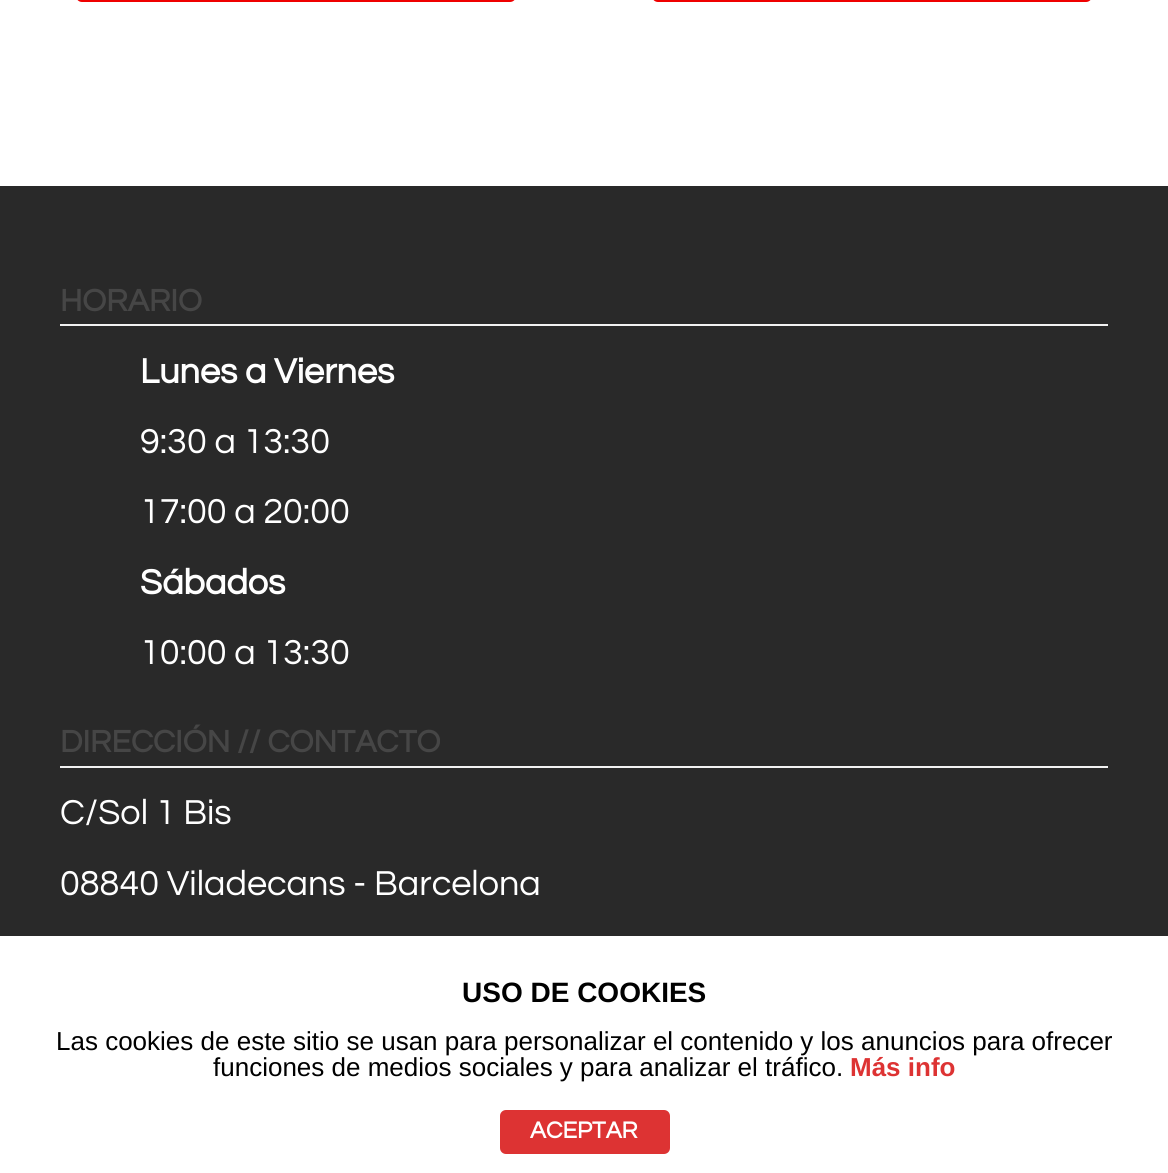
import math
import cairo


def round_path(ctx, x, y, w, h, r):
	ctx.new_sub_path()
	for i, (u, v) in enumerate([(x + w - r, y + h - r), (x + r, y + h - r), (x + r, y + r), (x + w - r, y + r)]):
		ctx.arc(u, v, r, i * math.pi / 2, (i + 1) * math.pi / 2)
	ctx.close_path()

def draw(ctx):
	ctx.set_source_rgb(1, 1, 1)
	ctx.paint()
	ctx.set_source_rgb(0.937, 0, 0)
	round_path(ctx, 76, -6, 440, 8, 6)
	ctx.fill()
	round_path(ctx, 652, -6, 440, 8, 6)
	ctx.fill()
	ctx.set_source_rgb(0.161, 0.161, 0.161)
	ctx.rectangle(0, 186, 1168, 750)
	ctx.fill()
	ctx.set_source_rgb(0.945, 0.945, 0.945)
	ctx.rectangle(60, 324, 1048, 2)
	ctx.fill()
	ctx.select_font_face('Questrial', cairo.FONT_SLANT_NORMAL, cairo.FONT_WEIGHT_BOLD)
	ctx.set_font_size(32)
	ctx.set_source_rgb(0.275, 0.275, 0.275)
	ctx.move_to(60, 311)
	ctx.show_text('HORARIO')
	ctx.set_font_size(36)
	ctx.set_source_rgb(1, 1, 1)
	ctx.move_to(140, 383)
	ctx.show_text('Lunes a Viernes')
	ctx.select_font_face('Questrial')
	ctx.move_to(140, 453)
	ctx.show_text('9:30 a 13:30')
	ctx.move_to(140, 523)
	ctx.show_text('17:00 a 20:00')
	ctx.select_font_face('Questrial', cairo.FONT_SLANT_NORMAL, cairo.FONT_WEIGHT_BOLD)
	ctx.move_to(140, 594)
	ctx.show_text('Sábados')
	ctx.select_font_face('Questrial')
	ctx.move_to(140, 664)
	ctx.show_text('10:00 a 13:30')
	ctx.set_source_rgb(0.945, 0.945, 0.945)
	ctx.rectangle(60, 766, 1048, 2)
	ctx.fill()
	ctx.select_font_face('Questrial', cairo.FONT_SLANT_NORMAL, cairo.FONT_WEIGHT_BOLD)
	ctx.set_font_size(32)
	ctx.set_source_rgb(0.275, 0.275, 0.275)
	ctx.move_to(60, 752)
	ctx.show_text('DIRECCIÓN // CONTACTO')
	ctx.select_font_face('Questrial')
	ctx.set_font_size(36)
	ctx.set_source_rgb(1, 1, 1)
	ctx.move_to(60, 824)
	ctx.show_text('C/Sol 1 Bis')
	ctx.move_to(60, 895)
	ctx.show_text('08840 Viladecans - Barcelona')
	ctx.select_font_face('Liberation Sans', cairo.FONT_SLANT_NORMAL, cairo.FONT_WEIGHT_BOLD)
	ctx.set_font_size(28)
	ctx.set_source_rgb(0, 0, 0)
	ctx.move_to(462, 1002)
	ctx.show_text('USO DE COOKIES')
	ctx.select_font_face('Liberation Sans')
	ctx.set_font_size(26)
	ctx.move_to(56, 1050)
	ctx.show_text('Las cookies de este sitio se usan para personalizar el contenido y los anuncios para ofrecer')
	ctx.move_to(213, 1076)
	ctx.show_text('funciones de medios sociales y para analizar el tráfico.')
	ctx.select_font_face('Liberation Sans', cairo.FONT_SLANT_NORMAL, cairo.FONT_WEIGHT_BOLD)
	ctx.set_source_rgb(0.867, 0.2, 0.2)
	ctx.move_to(850, 1076)
	ctx.show_text('Más info')
	round_path(ctx, 500, 1110, 170, 44, 6)
	ctx.fill()
	ctx.select_font_face('Questrial', cairo.FONT_SLANT_NORMAL, cairo.FONT_WEIGHT_BOLD)
	ctx.set_font_size(24)
	ctx.set_source_rgb(1, 1, 1)
	ctx.move_to(530, 1138)
	ctx.show_text('ACEPTAR')


surface = cairo.ImageSurface(cairo.FORMAT_RGB24, 1168, 1173)
ctx = cairo.Context(surface)
options = cairo.FontOptions()
options.set_hint_metrics(cairo.HINT_METRICS_OFF)
options.set_hint_style(cairo.HINT_STYLE_NONE)
ctx.set_font_options(options)
ctx.set_miter_limit(4)
draw(ctx)
surface.write_to_png('image.png')
